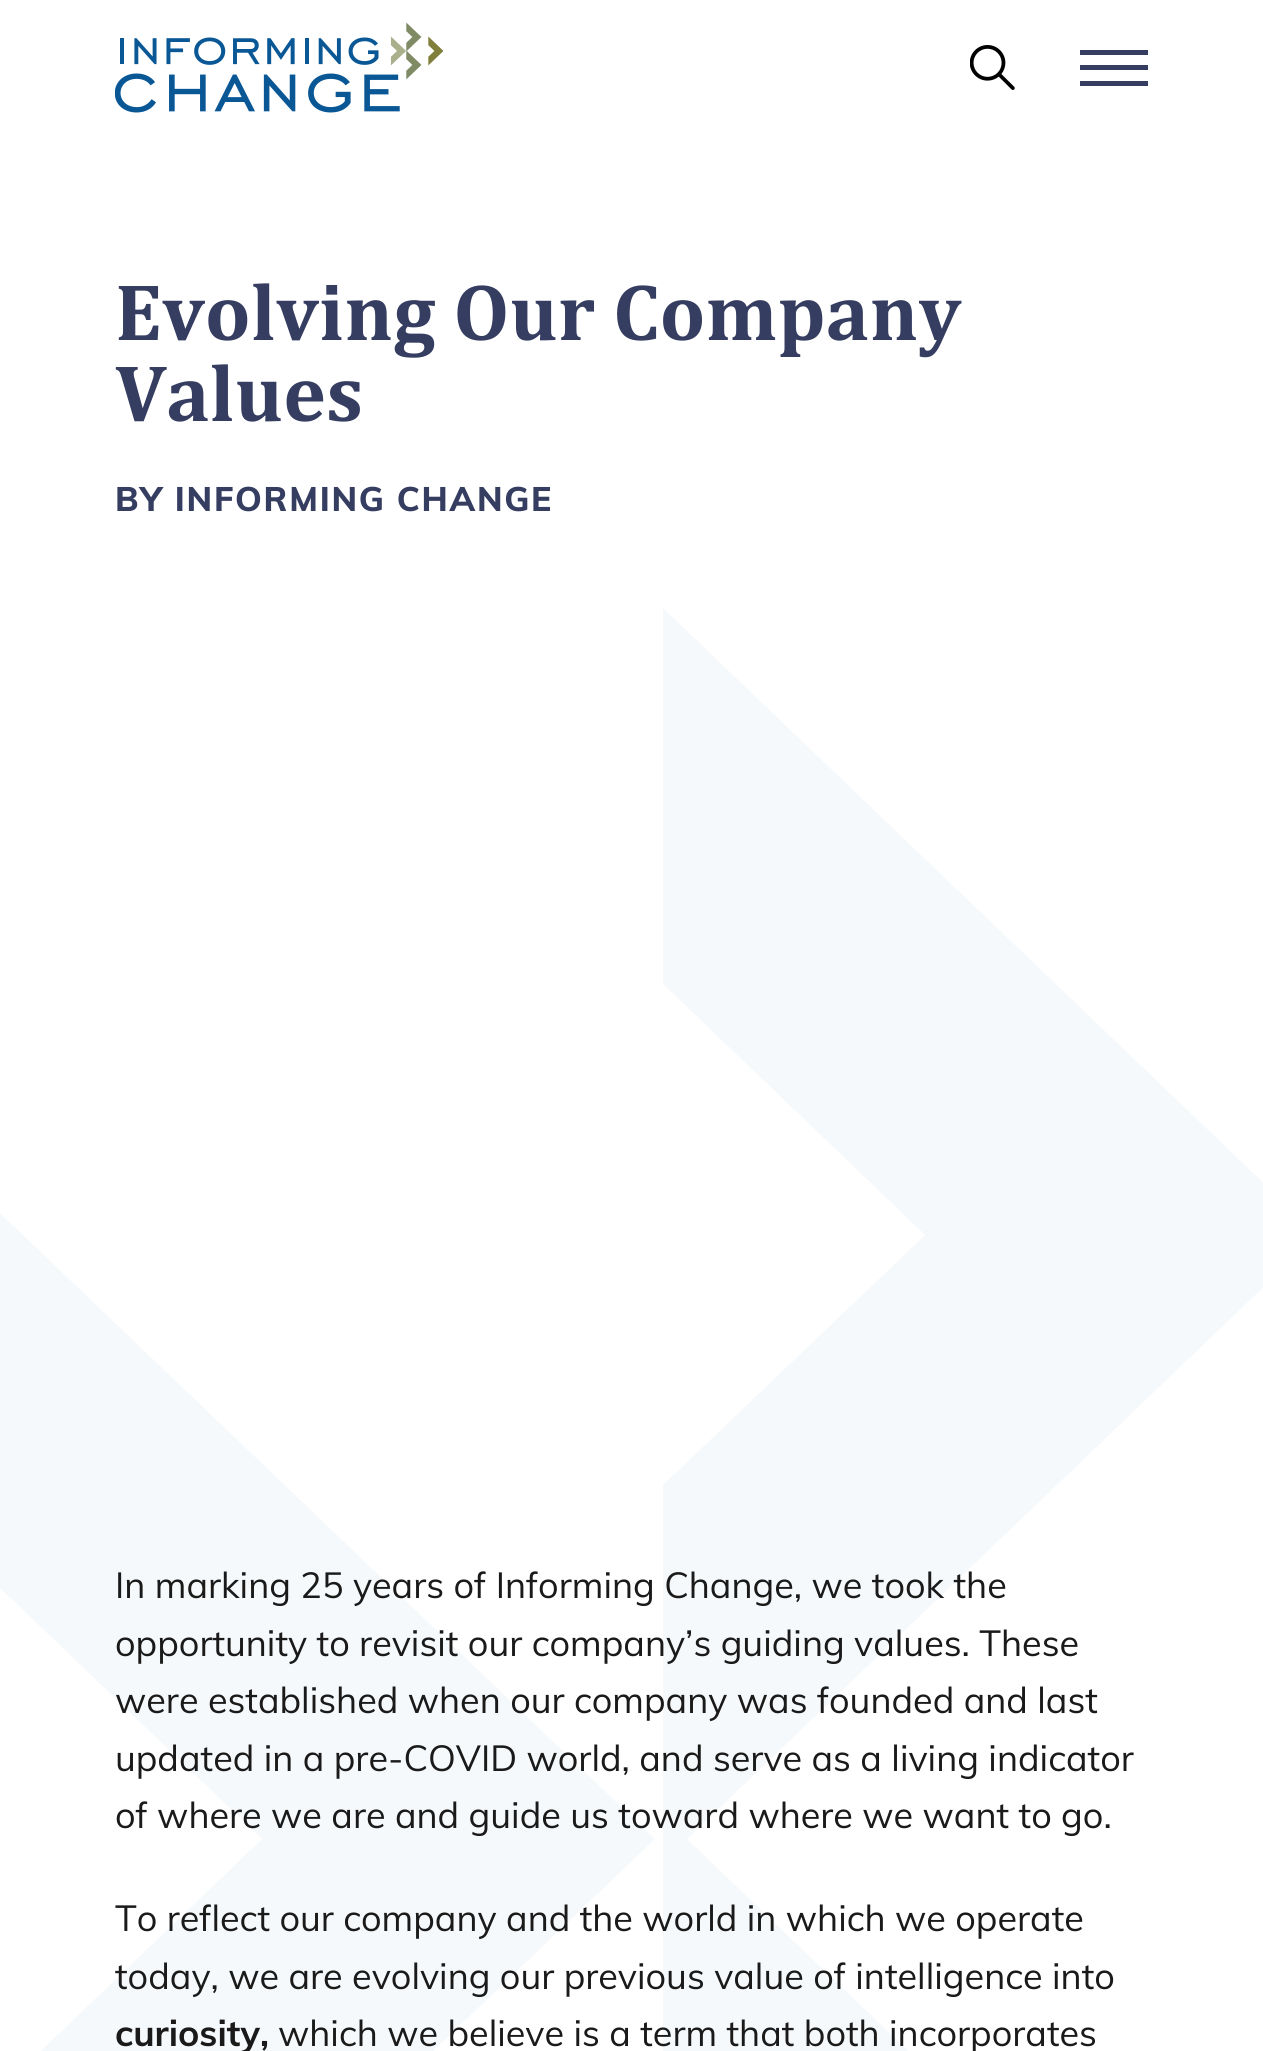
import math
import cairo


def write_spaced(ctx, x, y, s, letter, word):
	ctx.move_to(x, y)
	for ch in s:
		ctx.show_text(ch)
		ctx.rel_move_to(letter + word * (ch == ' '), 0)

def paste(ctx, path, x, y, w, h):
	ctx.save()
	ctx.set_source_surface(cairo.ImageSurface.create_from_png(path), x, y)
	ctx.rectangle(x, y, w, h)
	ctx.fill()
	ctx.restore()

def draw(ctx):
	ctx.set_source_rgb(1, 1, 1)
	ctx.paint()
	paste(ctx, 'media/1.png', 115, 23, 328, 90)
	paste(ctx, 'media/2.png', 970, 45, 45, 45)
	ctx.set_source_rgb(0.208, 0.239, 0.38)
	ctx.rectangle(1080, 65, 68, 5)
	ctx.rectangle(1080, 50, 68, 5)
	ctx.rectangle(1080, 81, 68, 5)
	ctx.fill()
	ctx.set_source_rgb(0.961, 0.973, 0.984)
	ctx.new_path()
	ctx.move_to(0, 1213)
	ctx.line_to(0, 1588)
	ctx.line_to(262, 1839)
	ctx.line_to(0, 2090)
	ctx.line_to(0, 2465)
	ctx.line_to(655, 1839)
	ctx.close_path()
	ctx.move_to(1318, 1235)
	ctx.line_to(663, 608)
	ctx.line_to(663, 984)
	ctx.line_to(925, 1235)
	ctx.line_to(663, 1485)
	ctx.line_to(663, 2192)
	ctx.line_to(925, 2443)
	ctx.line_to(663, 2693)
	ctx.line_to(663, 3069)
	ctx.line_to(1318, 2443)
	ctx.line_to(687, 1839)
	ctx.close_path()
	ctx.move_to(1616, 1213)
	ctx.line_to(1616, 1588)
	ctx.line_to(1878, 1839)
	ctx.line_to(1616, 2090)
	ctx.line_to(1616, 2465)
	ctx.line_to(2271, 1839)
	ctx.close_path()
	ctx.fill()
	ctx.select_font_face('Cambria', cairo.FONT_SLANT_NORMAL, cairo.FONT_WEIGHT_BOLD)
	ctx.set_font_size(81)
	ctx.set_source_rgb(0.208, 0.239, 0.38)
	ctx.move_to(115, 340)
	ctx.show_text('Evolving Our Company')
	ctx.move_to(115, 421)
	ctx.show_text('Values')
	ctx.select_font_face('Muli ExtraBold')
	ctx.set_font_size(33.75)
	write_spaced(ctx, 115, 511, 'BY INFORMING CHANGE', 1.7, 0)
	ctx.select_font_face('Muli')
	ctx.set_font_size(36)
	ctx.set_source_rgb(0.102, 0.102, 0.102)
	for x, y, s in [
		(115, 1598, 'In marking 25 years of Informing Change, we took the'),
		(115, 1656, 'opportunity to revisit our company’s guiding values. These'),
		(115, 1713, 'were established when our company was founded and last'),
		(115, 1771, 'updated in a pre-COVID world, and serve as a living indicator'),
		(115, 1828, 'of where we are and guide us toward where we want to go.'),
		(115, 1931, 'To reflect our company and the world in which we operate'),
		(115, 1989, 'today, we are evolving our previous value of intelligence into'),
	]:
		ctx.move_to(x, y)
		ctx.show_text(s)
	ctx.select_font_face('Muli', cairo.FONT_SLANT_NORMAL, cairo.FONT_WEIGHT_BOLD)
	ctx.move_to(115, 2046)
	ctx.show_text('curiosity,')
	ctx.select_font_face('Muli')
	ctx.move_to(278, 2046)
	ctx.show_text('which we believe is a term that both incorporates')


surface = cairo.ImageSurface(cairo.FORMAT_RGB24, 1263, 2051)
ctx = cairo.Context(surface)
options = cairo.FontOptions()
options.set_hint_metrics(cairo.HINT_METRICS_OFF)
options.set_hint_style(cairo.HINT_STYLE_NONE)
ctx.set_font_options(options)
ctx.set_miter_limit(4)
draw(ctx)
surface.write_to_png('image.png')
